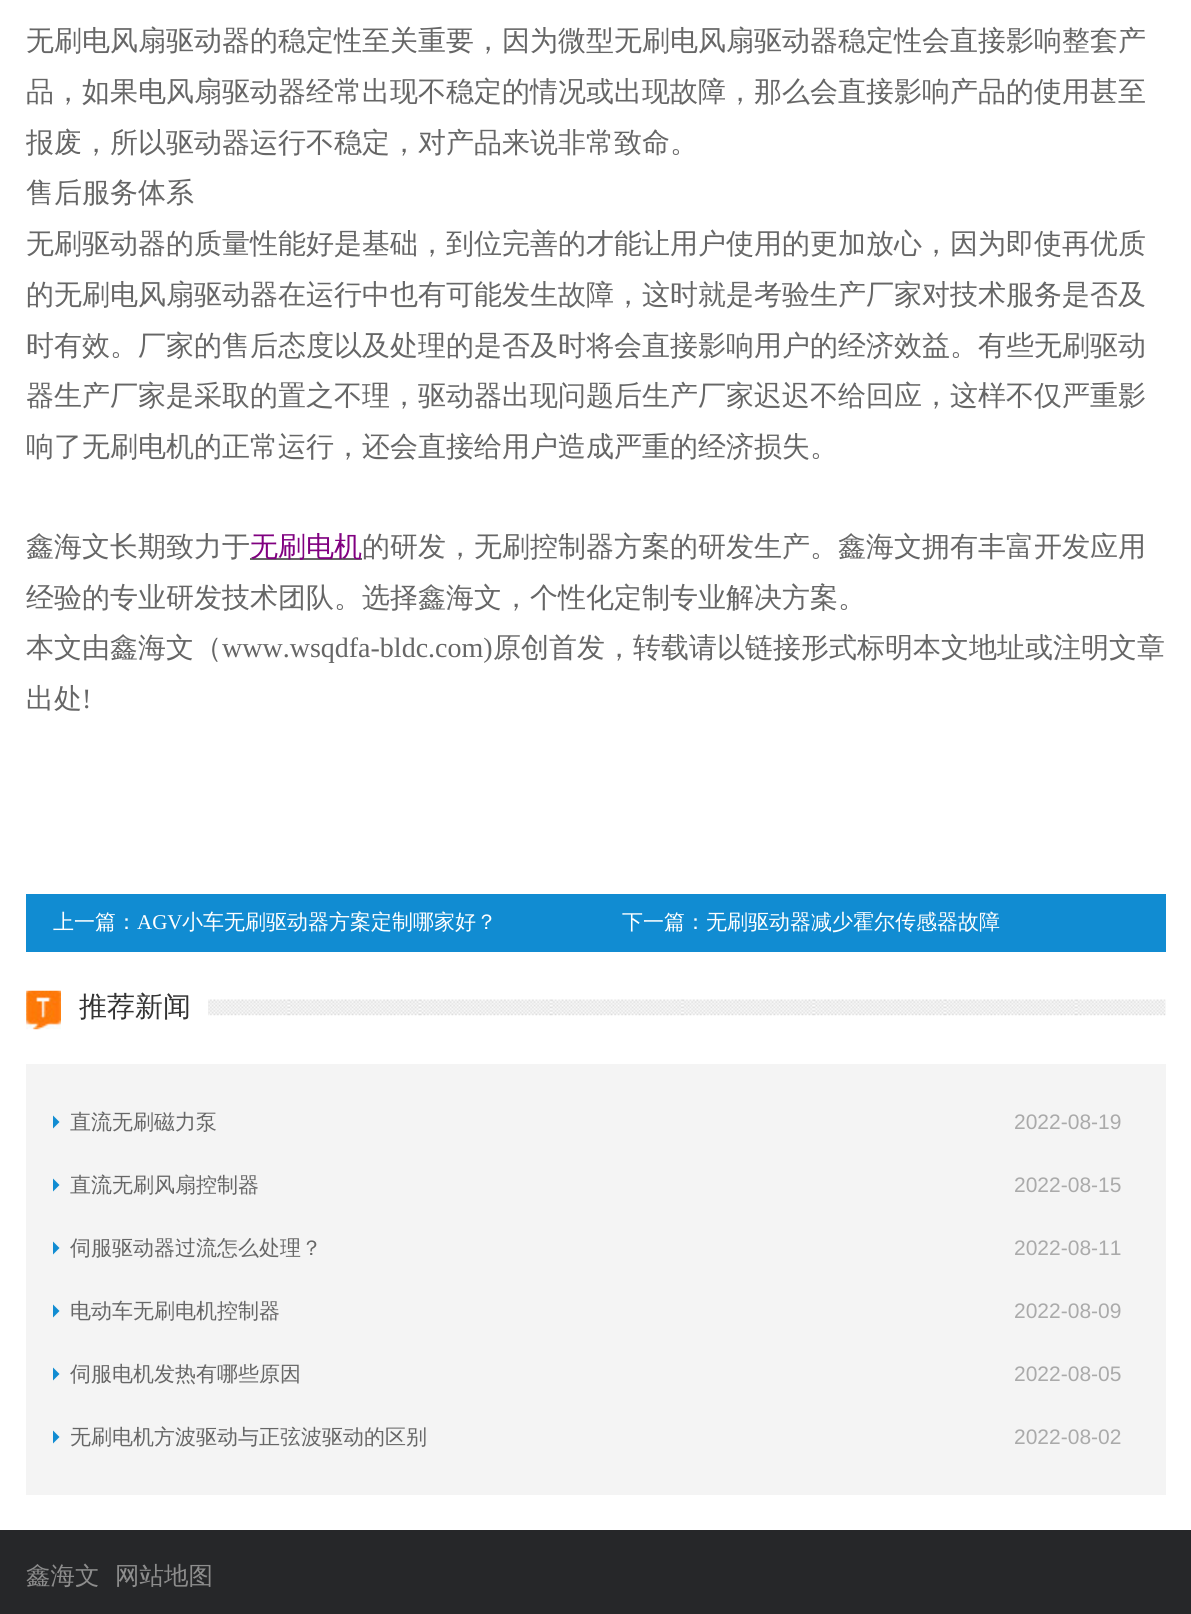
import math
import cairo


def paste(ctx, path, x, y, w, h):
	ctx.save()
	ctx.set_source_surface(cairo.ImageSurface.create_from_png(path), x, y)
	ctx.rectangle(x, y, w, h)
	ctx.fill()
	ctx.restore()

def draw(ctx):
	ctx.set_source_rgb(1, 1, 1)
	ctx.paint()
	ctx.select_font_face('WenQuanYi Zen Hei Medium')
	ctx.set_font_size(28)
	ctx.set_source_rgb(0.4, 0.4, 0.4)
	for x, y, s in [
		(26, 50, '无刷电风扇驱动器的稳定性至关重要，因为微型无刷电风扇驱动器稳定性会直接影响整套产'),
		(26, 101, '品，如果电风扇驱动器经常出现不稳定的情况或出现故障，那么会直接影响产品的使用甚至'),
		(26, 152, '报废，所以驱动器运行不稳定，对产品来说非常致命。'),
		(26, 202, '售后服务体系'),
		(26, 253, '无刷驱动器的质量性能好是基础，到位完善的才能让用户使用的更加放心，因为即使再优质'),
		(26, 304, '的无刷电风扇驱动器在运行中也有可能发生故障，这时就是考验生产厂家对技术服务是否及'),
		(26, 355, '时有效。厂家的售后态度以及处理的是否及时将会直接影响用户的经济效益。有些无刷驱动'),
		(26, 405, '器生产厂家是采取的置之不理，驱动器出现问题后生产厂家迟迟不给回应，这样不仅严重影'),
		(26, 456, '响了无刷电机的正常运行，还会直接给用户造成严重的经济损失。'),
		(26, 556, '鑫海文长期致力于'),
	]:
		ctx.move_to(x, y)
		ctx.show_text(s)
	ctx.rectangle(250, 558, 112, 2)
	ctx.fill()
	ctx.set_source_rgb(0.502, 0, 0.502)
	ctx.move_to(250, 556)
	ctx.show_text('无刷电机')
	ctx.set_source_rgb(0.4, 0.4, 0.4)
	for x, y, s in [
		(362, 556, '的研发，无刷控制器方案的研发生产。鑫海文拥有丰富开发应用'),
		(26, 607, '经验的专业研发技术团队。选择鑫海文，个性化定制专业解决方案。'),
		(26, 657, '本文由鑫海文（'),
	]:
		ctx.move_to(x, y)
		ctx.show_text(s)
	ctx.select_font_face('Liberation Serif')
	ctx.move_to(222, 657)
	ctx.show_text('www.wsqdfa-bldc.com)')
	ctx.select_font_face('WenQuanYi Zen Hei Medium')
	ctx.move_to(493, 657)
	ctx.show_text('原创首发，转载请以链接形式标明本文地址或注明文章')
	ctx.move_to(26, 708)
	ctx.show_text('出处')
	ctx.select_font_face('Liberation Serif')
	ctx.move_to(82, 708)
	ctx.show_text('!')
	ctx.set_source_rgb(0.067, 0.549, 0.824)
	ctx.rectangle(26, 894, 1140, 58)
	ctx.fill()
	ctx.select_font_face('WenQuanYi Zen Hei Medium')
	ctx.set_font_size(21)
	ctx.set_source_rgb(1, 1, 1)
	ctx.move_to(53, 929)
	ctx.show_text('上一篇：')
	ctx.select_font_face('Liberation Serif')
	ctx.move_to(137, 929)
	ctx.show_text('AGV')
	ctx.select_font_face('WenQuanYi Zen Hei Medium')
	ctx.move_to(182, 929)
	ctx.show_text('小车无刷驱动器方案定制哪家好？')
	ctx.move_to(622, 929)
	ctx.show_text('下一篇：无刷驱动器减少霍尔传感器故障')
	paste(ctx, 'media/1.png', 26, 999, 1140, 17)
	paste(ctx, 'media/2.png', 26, 990, 36, 40)
	ctx.rectangle(61, 990, 147, 39)
	ctx.fill()
	ctx.set_font_size(28)
	ctx.set_source_rgb(0.2, 0.2, 0.2)
	ctx.move_to(79, 1016)
	ctx.show_text('推荐新闻')
	ctx.set_source_rgb(0.957, 0.957, 0.957)
	ctx.rectangle(26, 1064, 1140, 431)
	ctx.fill()
	ctx.save()
	ctx.rectangle(53, 1090, 1086, 63)
	ctx.clip()
	ctx.set_source_rgb(0.067, 0.549, 0.824)
	ctx.new_path()
	ctx.move_to(52.5, 1129)
	ctx.line_to(52.5, 1115)
	ctx.line_to(59.5, 1122)
	ctx.close_path()
	ctx.fill()
	ctx.restore()
	ctx.set_font_size(21)
	ctx.set_source_rgb(0.4, 0.4, 0.4)
	ctx.move_to(70, 1129)
	ctx.show_text('直流无刷磁力泵')
	ctx.select_font_face('Liberation Sans')
	ctx.set_source_rgb(0.667, 0.667, 0.667)
	ctx.move_to(1014, 1129)
	ctx.show_text('2022-08-19')
	ctx.save()
	ctx.rectangle(53, 1153, 1086, 63)
	ctx.clip()
	ctx.set_source_rgb(0.067, 0.549, 0.824)
	ctx.new_path()
	ctx.move_to(52.5, 1192)
	ctx.line_to(52.5, 1178)
	ctx.line_to(59.5, 1185)
	ctx.close_path()
	ctx.fill()
	ctx.restore()
	ctx.select_font_face('WenQuanYi Zen Hei Medium')
	ctx.set_source_rgb(0.4, 0.4, 0.4)
	ctx.move_to(70, 1192)
	ctx.show_text('直流无刷风扇控制器')
	ctx.select_font_face('Liberation Sans')
	ctx.set_source_rgb(0.667, 0.667, 0.667)
	ctx.move_to(1014, 1192)
	ctx.show_text('2022-08-15')
	ctx.save()
	ctx.rectangle(53, 1216, 1086, 63)
	ctx.clip()
	ctx.set_source_rgb(0.067, 0.549, 0.824)
	ctx.new_path()
	ctx.move_to(52.5, 1255)
	ctx.line_to(52.5, 1241)
	ctx.line_to(59.5, 1248)
	ctx.close_path()
	ctx.fill()
	ctx.restore()
	ctx.select_font_face('WenQuanYi Zen Hei Medium')
	ctx.set_source_rgb(0.4, 0.4, 0.4)
	ctx.move_to(70, 1255)
	ctx.show_text('伺服驱动器过流怎么处理？')
	ctx.select_font_face('Liberation Sans')
	ctx.set_source_rgb(0.667, 0.667, 0.667)
	ctx.move_to(1014, 1255)
	ctx.show_text('2022-08-11')
	ctx.save()
	ctx.rectangle(53, 1279, 1086, 63)
	ctx.clip()
	ctx.set_source_rgb(0.067, 0.549, 0.824)
	ctx.new_path()
	ctx.move_to(52.5, 1318)
	ctx.line_to(52.5, 1304)
	ctx.line_to(59.5, 1311)
	ctx.close_path()
	ctx.fill()
	ctx.restore()
	ctx.select_font_face('WenQuanYi Zen Hei Medium')
	ctx.set_source_rgb(0.4, 0.4, 0.4)
	ctx.move_to(70, 1318)
	ctx.show_text('电动车无刷电机控制器')
	ctx.select_font_face('Liberation Sans')
	ctx.set_source_rgb(0.667, 0.667, 0.667)
	ctx.move_to(1014, 1318)
	ctx.show_text('2022-08-09')
	ctx.save()
	ctx.rectangle(53, 1342, 1086, 63)
	ctx.clip()
	ctx.set_source_rgb(0.067, 0.549, 0.824)
	ctx.new_path()
	ctx.move_to(52.5, 1381)
	ctx.line_to(52.5, 1367)
	ctx.line_to(59.5, 1374)
	ctx.close_path()
	ctx.fill()
	ctx.restore()
	ctx.select_font_face('WenQuanYi Zen Hei Medium')
	ctx.set_source_rgb(0.4, 0.4, 0.4)
	ctx.move_to(70, 1381)
	ctx.show_text('伺服电机发热有哪些原因')
	ctx.select_font_face('Liberation Sans')
	ctx.set_source_rgb(0.667, 0.667, 0.667)
	ctx.move_to(1014, 1381)
	ctx.show_text('2022-08-05')
	ctx.save()
	ctx.rectangle(53, 1405, 1086, 63)
	ctx.clip()
	ctx.set_source_rgb(0.067, 0.549, 0.824)
	ctx.new_path()
	ctx.move_to(52.5, 1444)
	ctx.line_to(52.5, 1430)
	ctx.line_to(59.5, 1437)
	ctx.close_path()
	ctx.fill()
	ctx.restore()
	ctx.select_font_face('WenQuanYi Zen Hei Medium')
	ctx.set_source_rgb(0.4, 0.4, 0.4)
	ctx.move_to(70, 1444)
	ctx.show_text('无刷电机方波驱动与正弦波驱动的区别')
	ctx.select_font_face('Liberation Sans')
	ctx.set_source_rgb(0.667, 0.667, 0.667)
	ctx.move_to(1014, 1444)
	ctx.show_text('2022-08-02')
	ctx.set_source_rgb(0.149, 0.153, 0.161)
	ctx.rectangle(0, 1530, 1191, 84)
	ctx.fill()
	ctx.select_font_face('WenQuanYi Zen Hei Medium')
	ctx.set_font_size(24.5)
	ctx.set_source_rgb(0.553, 0.553, 0.553)
	ctx.move_to(26, 1584)
	ctx.show_text('鑫海文')
	ctx.move_to(115, 1584)
	ctx.show_text('网站地图')


surface = cairo.ImageSurface(cairo.FORMAT_RGB24, 1191, 1614)
ctx = cairo.Context(surface)
options = cairo.FontOptions()
options.set_hint_metrics(cairo.HINT_METRICS_OFF)
options.set_hint_style(cairo.HINT_STYLE_NONE)
ctx.set_font_options(options)
ctx.set_miter_limit(4)
draw(ctx)
surface.write_to_png('image.png')
